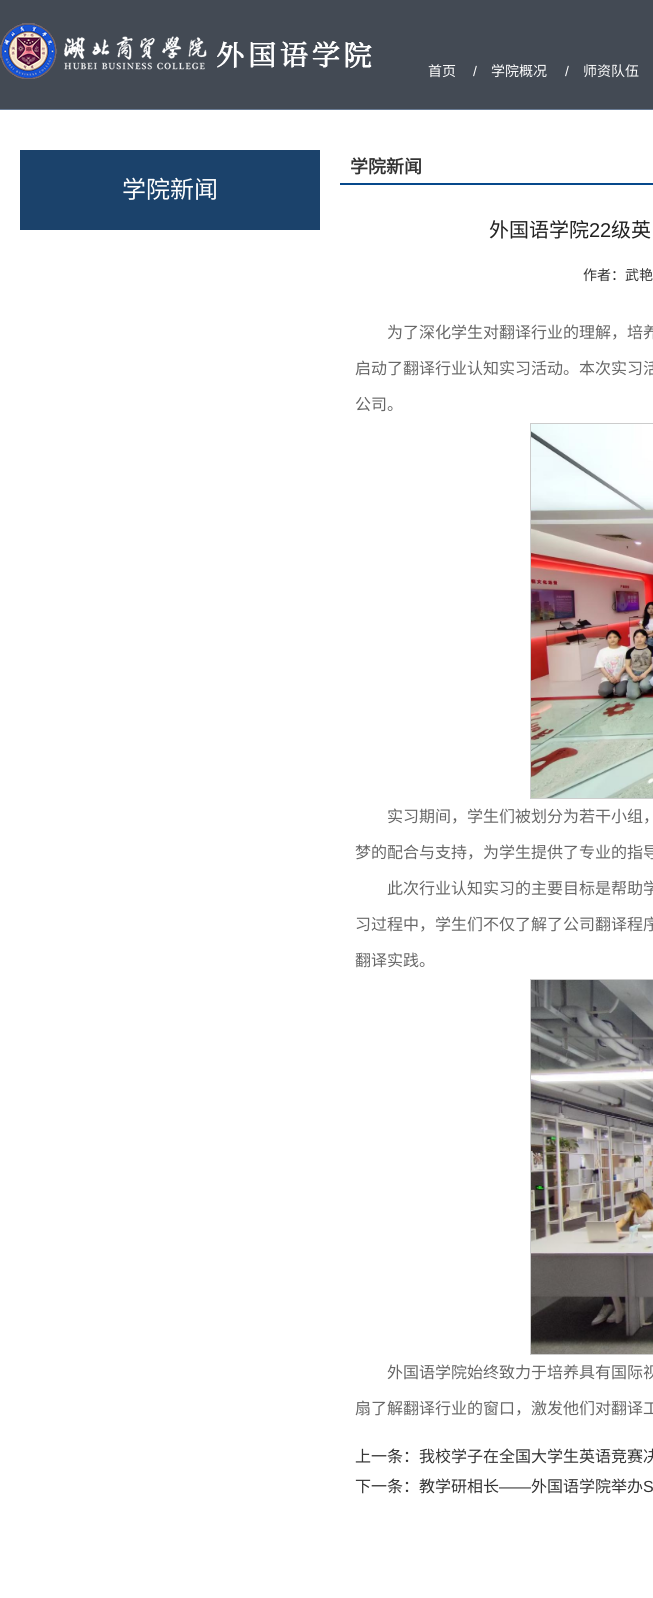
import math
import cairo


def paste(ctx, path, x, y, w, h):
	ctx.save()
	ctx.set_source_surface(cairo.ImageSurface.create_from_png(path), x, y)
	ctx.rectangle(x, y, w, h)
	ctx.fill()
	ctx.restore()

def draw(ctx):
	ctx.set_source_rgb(1, 1, 1)
	ctx.paint()
	ctx.set_source_rgb(0.263, 0.29, 0.329)
	ctx.rectangle(0, 0, 653, 109)
	ctx.fill()
	ctx.set_source_rgb(0.412, 0.482, 0.58)
	ctx.rectangle(0, 109, 653, 1)
	ctx.fill()
	paste(ctx, 'media/1.png', 0, 23, 372, 56)
	ctx.select_font_face('Noto Sans CJK SC')
	ctx.set_font_size(14)
	ctx.set_source_rgb(1, 1, 1)
	ctx.move_to(428, 76)
	ctx.show_text('首页')
	ctx.select_font_face('Liberation Sans')
	ctx.move_to(473, 76)
	ctx.show_text('/')
	ctx.select_font_face('Noto Sans CJK SC')
	ctx.move_to(491, 76)
	ctx.show_text('学院概况')
	ctx.select_font_face('Liberation Sans')
	ctx.move_to(565, 76)
	ctx.show_text('/')
	ctx.select_font_face('Noto Sans CJK SC')
	ctx.move_to(583, 76)
	ctx.show_text('师资队伍')
	ctx.set_source_rgb(0.106, 0.259, 0.42)
	ctx.rectangle(20, 150, 300, 80)
	ctx.fill()
	ctx.set_font_size(24)
	ctx.set_source_rgb(1, 1, 1)
	ctx.move_to(122, 198)
	ctx.show_text('学院新闻')
	ctx.set_source_rgb(0.031, 0.282, 0.545)
	ctx.rectangle(340, 183, 313, 2)
	ctx.fill()
	ctx.select_font_face('Noto Sans CJK SC', cairo.FONT_SLANT_NORMAL, cairo.FONT_WEIGHT_BOLD)
	ctx.set_font_size(18)
	ctx.set_source_rgb(0.2, 0.2, 0.2)
	ctx.move_to(350, 173)
	ctx.show_text('学院新闻')
	ctx.select_font_face('Noto Sans CJK SC')
	ctx.set_font_size(20)
	ctx.set_source_rgb(0.133, 0.133, 0.133)
	ctx.move_to(489, 237)
	ctx.show_text('外国语学院')
	ctx.select_font_face('Liberation Sans')
	ctx.move_to(589, 237)
	ctx.show_text('22')
	ctx.select_font_face('Noto Sans CJK SC')
	ctx.move_to(611, 237)
	ctx.show_text('级英')
	ctx.set_font_size(14)
	ctx.set_source_rgb(0.2, 0.2, 0.2)
	ctx.move_to(583, 280)
	ctx.show_text('作者：武艳')
	ctx.set_font_size(16)
	ctx.set_source_rgb(0.4, 0.4, 0.4)
	for x, y, s in [
		(387, 338, '为了深化学生对翻译行业的理解，培养'),
		(355, 374, '启动了翻译行业认知实习活动。本次实习活'),
		(355, 410, '公司。'),
	]:
		ctx.move_to(x, y)
		ctx.show_text(s)
	ctx.rectangle(530.5, 423.5, 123, 375)
	ctx.set_source_rgb(0.8, 0.8, 0.8)
	ctx.set_line_width(1)
	ctx.stroke()
	paste(ctx, 'media/2.png', 531, 424, 122, 374)
	ctx.set_source_rgb(0.4, 0.4, 0.4)
	for x, y, s in [
		(387, 822, '实习期间，学生们被划分为若干小组，'),
		(355, 858, '梦的配合与支持，为学生提供了专业的指导'),
		(387, 894, '此次行业认知实习的主要目标是帮助学'),
		(355, 930, '习过程中，学生们不仅了解了公司翻译程序'),
		(355, 966, '翻译实践。'),
	]:
		ctx.move_to(x, y)
		ctx.show_text(s)
	ctx.rectangle(530.5, 979.5, 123, 375)
	ctx.set_source_rgb(0.8, 0.8, 0.8)
	ctx.stroke()
	paste(ctx, 'media/3.png', 531, 980, 122, 374)
	ctx.set_source_rgb(0.4, 0.4, 0.4)
	ctx.move_to(387, 1378)
	ctx.show_text('外国语学院始终致力于培养具有国际视')
	ctx.move_to(355, 1414)
	ctx.show_text('扇了解翻译行业的窗口，激发他们对翻译工')
	ctx.set_source_rgb(0.2, 0.2, 0.2)
	ctx.move_to(355, 1462)
	ctx.show_text('上一条：我校学子在全国大学生英语竞赛决')
	ctx.move_to(355, 1492)
	ctx.show_text('下一条：教学研相长')
	ctx.select_font_face('Liberation Sans')
	ctx.move_to(499, 1492)
	ctx.show_text('——')
	ctx.select_font_face('Noto Sans CJK SC')
	ctx.move_to(531, 1492)
	ctx.show_text('外国语学院举办')
	ctx.select_font_face('Liberation Sans')
	ctx.move_to(643, 1492)
	ctx.show_text('S')


surface = cairo.ImageSurface(cairo.FORMAT_RGB24, 653, 1598)
ctx = cairo.Context(surface)
options = cairo.FontOptions()
options.set_hint_metrics(cairo.HINT_METRICS_OFF)
options.set_hint_style(cairo.HINT_STYLE_NONE)
ctx.set_font_options(options)
ctx.set_miter_limit(4)
draw(ctx)
surface.write_to_png('image.png')
